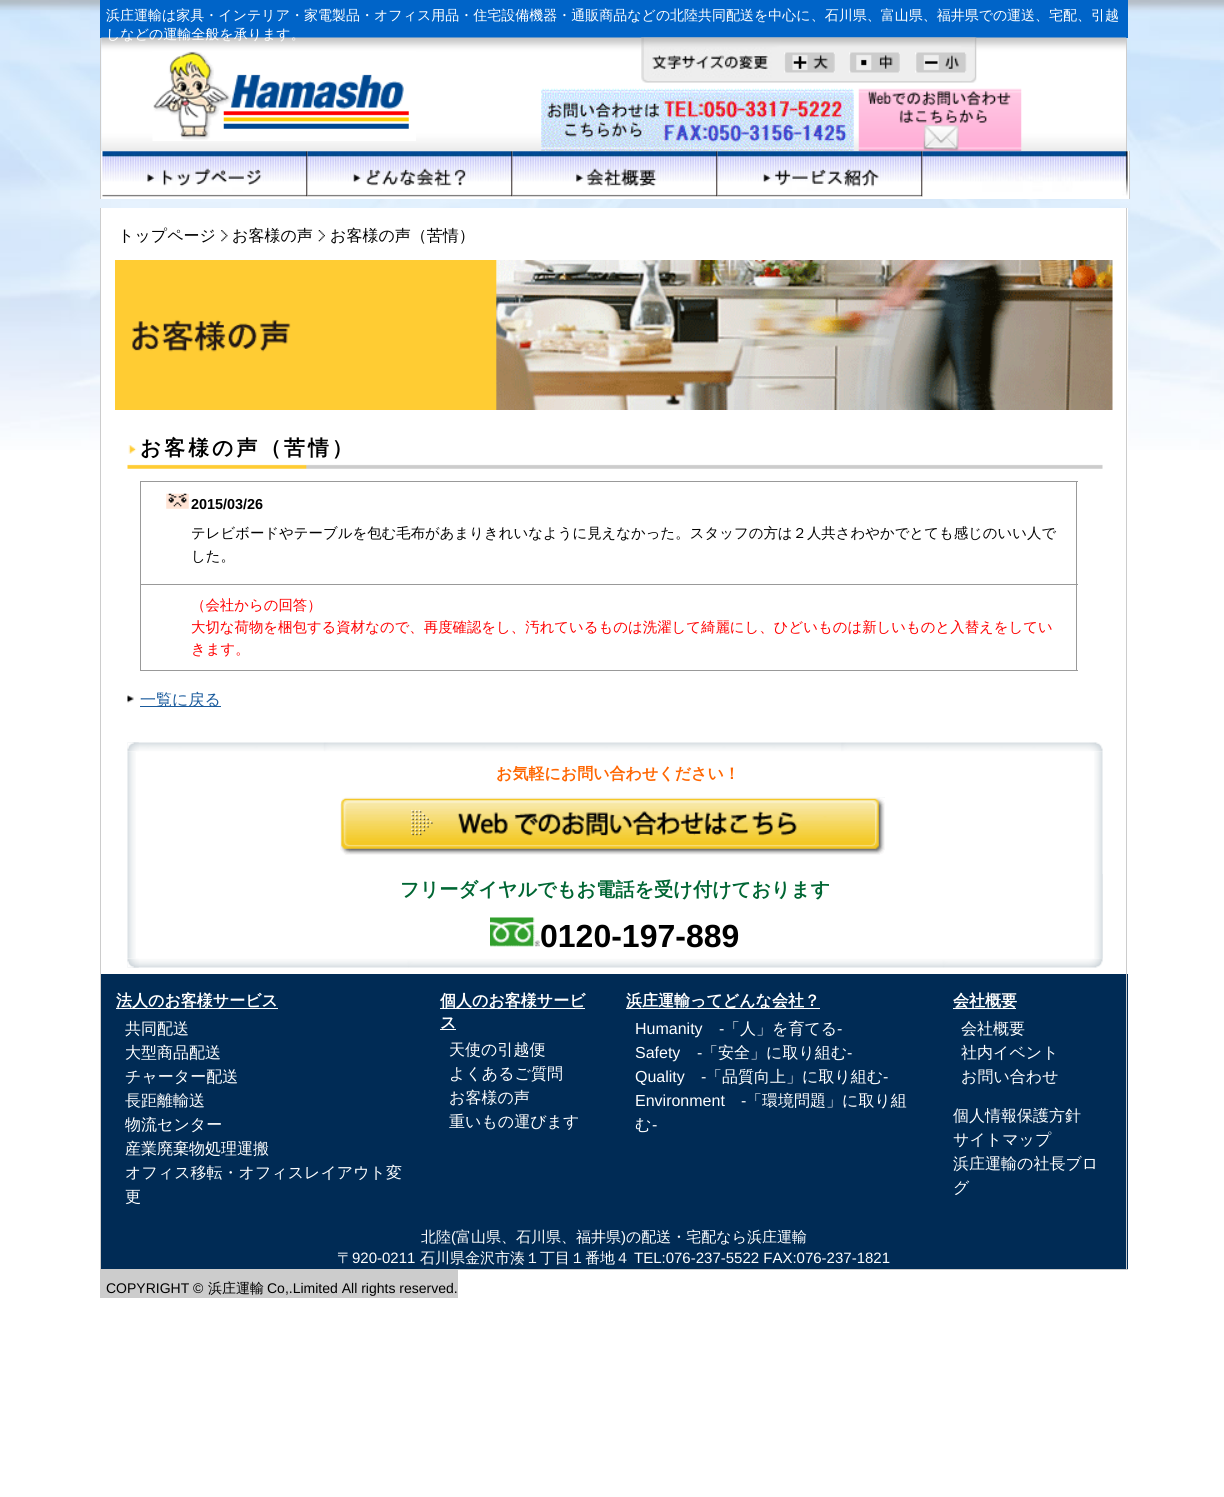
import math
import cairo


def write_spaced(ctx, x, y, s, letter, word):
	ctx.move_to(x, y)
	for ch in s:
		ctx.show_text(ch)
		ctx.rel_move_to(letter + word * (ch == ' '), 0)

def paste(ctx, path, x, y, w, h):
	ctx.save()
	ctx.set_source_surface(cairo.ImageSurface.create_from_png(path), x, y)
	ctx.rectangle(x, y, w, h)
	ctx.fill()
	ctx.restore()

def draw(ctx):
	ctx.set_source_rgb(1, 1, 1)
	ctx.paint()
	paste(ctx, 'media/1.png', 0, 0, 1224, 450)
	ctx.set_source_rgb(0, 0.392, 0.784)
	ctx.rectangle(100, 0, 1028, 38)
	ctx.fill()
	ctx.select_font_face('WenQuanYi Zen Hei Medium')
	ctx.set_font_size(14)
	ctx.set_source_rgb(1, 1, 1)
	for x, y, s in [
		(106, 20, '浜庄運輸は家具・インテリア・家電製品・オフィス用品・住宅設備機器・通販商品などの'),
		(670, 20, '北陸共同配送を中心に、石川県、富山県、福井県での'),
		(1007, 20, '運送、宅配、引越'),
	]:
		ctx.move_to(x, y)
		ctx.show_text(s)
	paste(ctx, 'media/2.png', 101, 37, 1026, 114)
	ctx.move_to(106, 39)
	ctx.show_text('しなどの運輸全般を承ります。')
	ctx.set_source_rgb(0.8, 0.8, 0.8)
	ctx.rectangle(1126, 38, 1, 113)
	ctx.fill()
	ctx.rectangle(100, 38, 1, 161)
	ctx.fill()
	paste(ctx, 'media/3.png', 152, 51, 264, 90)
	paste(ctx, 'media/4.png', 641, 37, 336, 46)
	paste(ctx, 'media/5.png', 784, 52, 51, 21)
	paste(ctx, 'media/6.png', 849, 52, 51, 21)
	paste(ctx, 'media/7.png', 915, 52, 52, 21)
	paste(ctx, 'media/8.png', 541, 88, 313, 63)
	paste(ctx, 'media/9.png', 858, 88, 164, 63)
	ctx.set_source_rgb(1, 1, 1)
	ctx.rectangle(101, 151, 1028, 48)
	ctx.fill()
	ctx.set_source_rgb(0.8, 0.8, 0.8)
	ctx.rectangle(1129, 151, 1, 48)
	ctx.fill()
	paste(ctx, 'media/10.png', 102, 151, 206, 46)
	paste(ctx, 'media/11.png', 307, 151, 206, 46)
	paste(ctx, 'media/12.png', 512, 151, 206, 46)
	paste(ctx, 'media/13.png', 717, 151, 206, 46)
	paste(ctx, 'media/14.png', 922, 151, 206, 45)
	ctx.set_source_rgb(1, 1, 1)
	ctx.rectangle(101, 208, 1027, 242)
	ctx.fill()
	ctx.set_source_rgb(0.8, 0.8, 0.8)
	ctx.rectangle(1126, 208, 1, 766)
	ctx.fill()
	ctx.set_font_size(16)
	ctx.set_source_rgb(0, 0, 0)
	ctx.move_to(118, 241)
	ctx.show_text('トップページ')
	paste(ctx, 'media/15.png', 221, 230, 7, 12)
	ctx.move_to(232, 241)
	ctx.show_text('お客様の声')
	paste(ctx, 'media/16.png', 318, 230, 7, 12)
	ctx.move_to(330, 241)
	ctx.show_text('お客様の声（苦情）')
	paste(ctx, 'media/17.png', 115, 260, 998, 150)
	paste(ctx, 'media/18.png', 127, 445, 976, 24)
	ctx.select_font_face('WenQuanYi Zen Hei', cairo.FONT_SLANT_NORMAL, cairo.FONT_WEIGHT_BOLD)
	ctx.set_font_size(20.75)
	write_spaced(ctx, 140, 455, 'お客様の声（苦情）', 3.1, 0)
	ctx.set_source_rgb(0.6, 0.6, 0.6)
	ctx.rectangle(140, 481, 938, 1)
	ctx.rectangle(140, 584, 938, 1)
	ctx.rectangle(1076, 584, 1, 87)
	ctx.rectangle(1076, 481, 1, 104)
	ctx.rectangle(140, 670, 938, 1)
	ctx.rectangle(140, 584, 1, 87)
	ctx.rectangle(140, 481, 1, 104)
	ctx.fill()
	paste(ctx, 'media/19.png', 166, 493, 23, 16)
	ctx.select_font_face('Liberation Sans', cairo.FONT_SLANT_NORMAL, cairo.FONT_WEIGHT_BOLD)
	ctx.set_font_size(14.4)
	ctx.set_source_rgb(0, 0, 0)
	ctx.move_to(191, 509)
	ctx.show_text('2015/03/26')
	ctx.select_font_face('WenQuanYi Zen Hei Medium')
	ctx.move_to(191, 538)
	ctx.show_text('テレビボードやテーブルを包む毛布があまりきれいなように見えなかった。スタッフの方は２人共さわやかでとても感じのいい人で')
	ctx.move_to(191, 561)
	ctx.show_text('した。')
	ctx.set_source_rgb(1, 0, 0)
	for x, y, s in [
		(191, 610, '（会社からの回答）'),
		(191, 632, '大切な荷物を梱包する資材なので、再度確認をし、汚れているものは洗濯して綺麗にし、ひどいものは新しいものと入替えをしてい'),
		(191, 654, 'きます。'),
	]:
		ctx.move_to(x, y)
		ctx.show_text(s)
	paste(ctx, 'media/20.png', 127, 695, 7, 8)
	ctx.set_source_rgb(0.098, 0.353, 0.612)
	ctx.rectangle(140, 706, 81, 1)
	ctx.fill()
	ctx.set_font_size(16)
	ctx.move_to(140, 705)
	ctx.show_text('一覧に戻る')
	paste(ctx, 'media/21.png', 127, 742, 976, 10)
	paste(ctx, 'media/22.png', 127, 742, 12, 10)
	paste(ctx, 'media/23.png', 127, 751, 9, 208)
	paste(ctx, 'media/24.png', 1094, 751, 9, 208)
	ctx.select_font_face('WenQuanYi Zen Hei', cairo.FONT_SLANT_NORMAL, cairo.FONT_WEIGHT_BOLD)
	ctx.set_source_rgb(1, 0.4, 0)
	ctx.move_to(496, 779)
	ctx.show_text('お気軽にお問い合わせください！')
	paste(ctx, 'media/25.png', 877, 797, 8, 1)
	paste(ctx, 'media/26.png', 340, 797, 545, 58)
	paste(ctx, 'media/27.png', 1099, 874, 4, 85)
	ctx.set_font_size(19.2)
	ctx.set_source_rgb(0, 0.4, 0.2)
	ctx.move_to(400, 896)
	ctx.show_text('フリーダイヤルでもお電話を受け付けております')
	paste(ctx, 'media/28.png', 490, 917, 50, 30)
	ctx.select_font_face('Liberation Sans', cairo.FONT_SLANT_NORMAL, cairo.FONT_WEIGHT_BOLD)
	ctx.set_font_size(32)
	ctx.set_source_rgb(0, 0, 0)
	ctx.move_to(540, 947)
	ctx.show_text('0120-197-889')
	paste(ctx, 'media/29.png', 127, 958, 976, 10)
	paste(ctx, 'media/30.png', 127, 958, 12, 10)
	ctx.set_source_rgb(0, 0.169, 0.333)
	ctx.rectangle(101, 974, 1027, 295)
	ctx.fill()
	ctx.set_source_rgb(0.8, 0.8, 0.8)
	ctx.rectangle(1126, 974, 1, 296)
	ctx.rectangle(100, 1269, 1028, 1)
	ctx.rectangle(100, 208, 1, 1062)
	ctx.fill()
	ctx.set_source_rgb(1, 1, 1)
	ctx.rectangle(116, 1008, 162, 1)
	ctx.fill()
	ctx.select_font_face('WenQuanYi Zen Hei', cairo.FONT_SLANT_NORMAL, cairo.FONT_WEIGHT_BOLD)
	ctx.set_font_size(16)
	ctx.move_to(116, 1006)
	ctx.show_text('法人のお客様サービス')
	ctx.select_font_face('WenQuanYi Zen Hei Medium')
	for x, y, s in [
		(125, 1034, '共同配送'),
		(125, 1058, '大型商品配送'),
		(125, 1082, 'チャーター配送'),
		(125, 1106, '長距離輸送'),
		(125, 1130, '物流センター'),
		(125, 1154, '産業廃棄物処理運搬'),
		(125, 1178, 'オフィス移転・オフィスレイアウト変'),
		(125, 1202, '更'),
	]:
		ctx.move_to(x, y)
		ctx.show_text(s)
	ctx.rectangle(440, 1008, 145, 1)
	ctx.fill()
	ctx.select_font_face('WenQuanYi Zen Hei', cairo.FONT_SLANT_NORMAL, cairo.FONT_WEIGHT_BOLD)
	ctx.move_to(440, 1006)
	ctx.show_text('個人のお客様サービ')
	ctx.move_to(440, 1028)
	ctx.show_text('ス')
	ctx.rectangle(440, 1029, 16, 1)
	ctx.fill()
	ctx.select_font_face('WenQuanYi Zen Hei Medium')
	for x, y, s in [
		(449, 1055, '天使の引越便'),
		(449, 1079, 'よくあるご質問'),
		(449, 1103, 'お客様の声'),
		(449, 1127, '重いもの運びます'),
	]:
		ctx.move_to(x, y)
		ctx.show_text(s)
	ctx.rectangle(626, 1008, 194, 1)
	ctx.fill()
	ctx.select_font_face('WenQuanYi Zen Hei', cairo.FONT_SLANT_NORMAL, cairo.FONT_WEIGHT_BOLD)
	ctx.move_to(626, 1006)
	ctx.show_text('浜庄運輸ってどんな会社？')
	ctx.select_font_face('Liberation Sans')
	ctx.move_to(635, 1034)
	ctx.show_text('Humanity')
	ctx.move_to(719, 1034)
	ctx.show_text('-')
	ctx.select_font_face('WenQuanYi Zen Hei Medium')
	ctx.move_to(724, 1034)
	ctx.show_text('「人」を育てる')
	ctx.select_font_face('Liberation Sans')
	for x, y, s in [
		(837, 1034, '-'),
		(635, 1058, 'Safety'),
		(697, 1058, '-'),
	]:
		ctx.move_to(x, y)
		ctx.show_text(s)
	ctx.select_font_face('WenQuanYi Zen Hei Medium')
	ctx.move_to(702, 1058)
	ctx.show_text('「安全」に取り組む')
	ctx.select_font_face('Liberation Sans')
	for x, y, s in [
		(847, 1058, '-'),
		(635, 1082, 'Quality'),
		(701, 1082, '-'),
	]:
		ctx.move_to(x, y)
		ctx.show_text(s)
	ctx.select_font_face('WenQuanYi Zen Hei Medium')
	ctx.move_to(706, 1082)
	ctx.show_text('「品質向上」に取り組む')
	ctx.select_font_face('Liberation Sans')
	for x, y, s in [
		(883, 1082, '-'),
		(635, 1106, 'Environment'),
		(741, 1106, '-'),
	]:
		ctx.move_to(x, y)
		ctx.show_text(s)
	ctx.select_font_face('WenQuanYi Zen Hei Medium')
	ctx.move_to(746, 1106)
	ctx.show_text('「環境問題」に取り組')
	ctx.move_to(635, 1130)
	ctx.show_text('む')
	ctx.select_font_face('Liberation Sans')
	ctx.move_to(652, 1130)
	ctx.show_text('-')
	ctx.rectangle(953, 1008, 63, 1)
	ctx.fill()
	ctx.select_font_face('WenQuanYi Zen Hei', cairo.FONT_SLANT_NORMAL, cairo.FONT_WEIGHT_BOLD)
	ctx.move_to(953, 1006)
	ctx.show_text('会社概要')
	ctx.select_font_face('WenQuanYi Zen Hei Medium')
	for x, y, s in [
		(961, 1034, '会社概要'),
		(961, 1058, '社内イベント'),
		(961, 1082, 'お問い合わせ'),
		(953, 1121, '個人情報保護方針'),
		(953, 1145, 'サイトマップ'),
		(953, 1169, '浜庄運輸の社長ブロ'),
		(953, 1193, 'グ'),
	]:
		ctx.move_to(x, y)
		ctx.show_text(s)
	ctx.set_font_size(15)
	ctx.move_to(421, 1242)
	ctx.show_text('北陸')
	ctx.select_font_face('Liberation Sans')
	ctx.move_to(451, 1242)
	ctx.show_text('(')
	ctx.select_font_face('WenQuanYi Zen Hei Medium')
	ctx.move_to(456, 1242)
	ctx.show_text('富山県、石川県、福井県')
	ctx.select_font_face('Liberation Sans')
	ctx.move_to(621, 1242)
	ctx.show_text(')')
	ctx.select_font_face('WenQuanYi Zen Hei Medium')
	ctx.move_to(626, 1242)
	ctx.show_text('の配送・宅配なら浜庄運輸')
	ctx.move_to(337, 1263)
	ctx.show_text('〒')
	ctx.select_font_face('Liberation Sans')
	ctx.move_to(352, 1263)
	ctx.show_text('920-0211')
	ctx.select_font_face('WenQuanYi Zen Hei Medium')
	ctx.move_to(420, 1263)
	ctx.show_text('石川県金沢市湊１丁目１番地４')
	ctx.select_font_face('Liberation Sans')
	ctx.move_to(634, 1263)
	ctx.show_text('TEL:076-237-5522 FAX:076-237-1821')
	ctx.set_source_rgb(0.8, 0.8, 0.8)
	ctx.rectangle(100, 1270, 358, 28)
	ctx.fill()
	ctx.set_font_size(14)
	ctx.set_source_rgb(0, 0, 0)
	ctx.move_to(106, 1293)
	ctx.show_text('COPYRIGHT ©')
	ctx.select_font_face('WenQuanYi Zen Hei Medium')
	ctx.move_to(208, 1293)
	ctx.show_text('浜庄運輸')
	ctx.select_font_face('Liberation Sans')
	ctx.move_to(267, 1293)
	ctx.show_text('Co,.Limited All rights reserved.')


surface = cairo.ImageSurface(cairo.FORMAT_RGB24, 1224, 1497)
ctx = cairo.Context(surface)
options = cairo.FontOptions()
options.set_hint_metrics(cairo.HINT_METRICS_OFF)
options.set_hint_style(cairo.HINT_STYLE_NONE)
ctx.set_font_options(options)
ctx.set_miter_limit(4)
draw(ctx)
surface.write_to_png('image.png')
